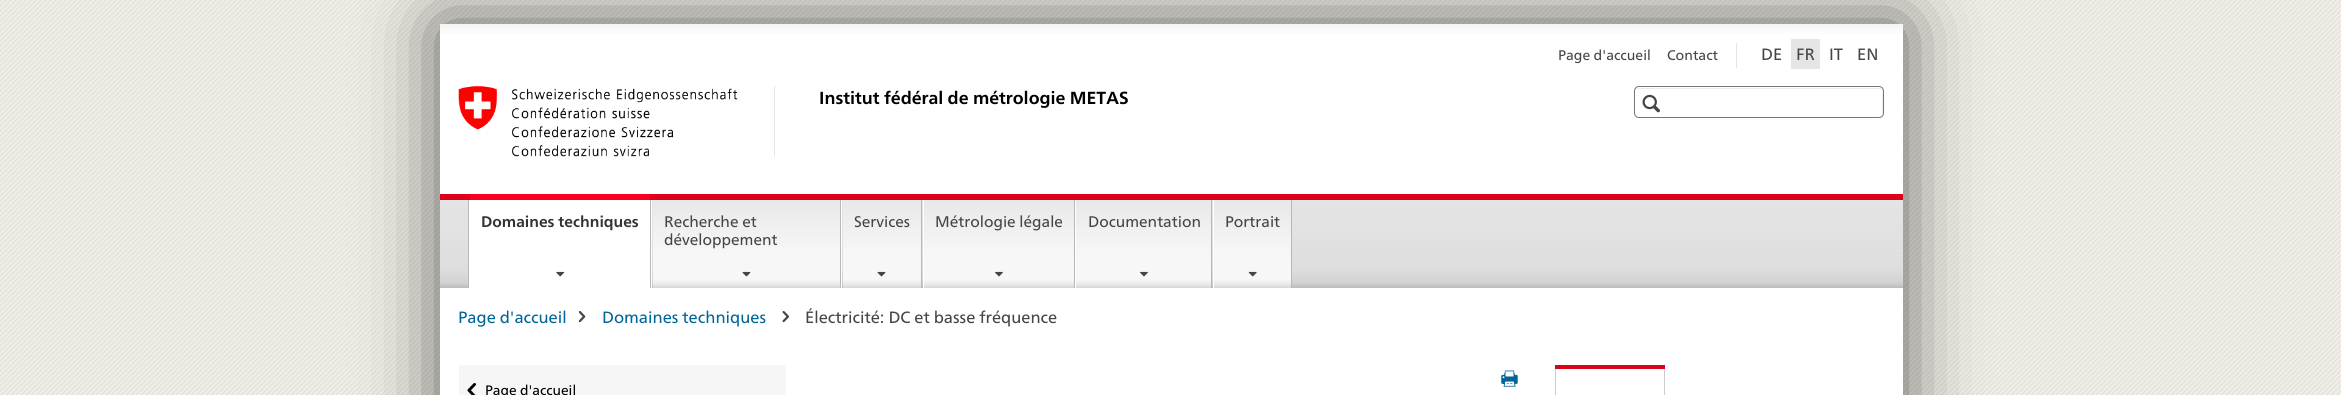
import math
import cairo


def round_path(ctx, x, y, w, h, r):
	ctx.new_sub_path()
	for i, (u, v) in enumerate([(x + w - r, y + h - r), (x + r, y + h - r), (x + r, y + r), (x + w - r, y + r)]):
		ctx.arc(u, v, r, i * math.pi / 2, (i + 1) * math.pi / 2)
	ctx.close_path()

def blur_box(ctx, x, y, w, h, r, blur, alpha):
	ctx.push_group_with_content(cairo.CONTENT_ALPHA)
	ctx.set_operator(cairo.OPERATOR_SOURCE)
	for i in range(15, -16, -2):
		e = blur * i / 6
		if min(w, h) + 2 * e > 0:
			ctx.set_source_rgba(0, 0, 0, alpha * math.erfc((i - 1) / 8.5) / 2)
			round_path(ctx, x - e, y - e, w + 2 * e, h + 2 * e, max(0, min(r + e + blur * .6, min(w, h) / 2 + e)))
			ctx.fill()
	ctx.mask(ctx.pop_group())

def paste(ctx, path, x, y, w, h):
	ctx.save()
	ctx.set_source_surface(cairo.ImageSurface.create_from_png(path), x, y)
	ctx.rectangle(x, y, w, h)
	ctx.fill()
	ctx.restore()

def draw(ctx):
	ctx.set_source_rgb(1, 1, 1)
	ctx.paint()
	paste(ctx, 'media/1.png', 0, 0, 2341, 395)
	ctx.set_source_rgb(0, 0, 0)
	blur_box(ctx, 440, 24, 1463, 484, 0, 37.5, 0.6)
	ctx.set_source_rgb(1, 1, 1)
	ctx.rectangle(440, 288, 1463, 107)
	ctx.fill()
	gradient = cairo.LinearGradient(1171, 24, 1171, 194)
	gradient.add_color_stop_rgba(0, 0.961, 0.961, 0.961, 1)
	gradient.add_color_stop_rgba(0.07, 1, 1, 1, 1)
	gradient.add_color_stop_rgba(1, 1, 1, 1, 1)
	ctx.set_source(gradient)
	ctx.rectangle(440, 24, 1463, 170)
	ctx.fill()
	ctx.select_font_face('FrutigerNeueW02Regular')
	ctx.set_font_size(14)
	ctx.set_source_rgb(0.271, 0.271, 0.271)
	ctx.move_to(1558, 60)
	ctx.show_text('Page d\'accueil')
	ctx.move_to(1667, 60)
	ctx.show_text('Contact')
	ctx.set_source_rgb(0.898, 0.898, 0.898)
	ctx.rectangle(1736, 43, 1, 25)
	ctx.fill()
	ctx.set_font_size(16.4)
	ctx.set_source_rgb(0.271, 0.271, 0.271)
	ctx.move_to(1761, 60)
	ctx.show_text('DE')
	ctx.set_source_rgb(0.898, 0.898, 0.898)
	ctx.rectangle(1791, 39, 29, 30)
	ctx.fill()
	ctx.set_source_rgb(0.271, 0.271, 0.271)
	for x, y, s in [
		(1796, 60, 'FR'),
		(1829, 60, 'IT'),
		(1857, 60, 'EN'),
	]:
		ctx.move_to(x, y)
		ctx.show_text(s)
	ctx.set_source_rgb(0.898, 0.898, 0.898)
	ctx.rectangle(774, 86, 1, 70)
	ctx.fill()
	paste(ctx, 'media/2.png', 458, 86, 280, 71)
	ctx.select_font_face('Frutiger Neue', cairo.FONT_SLANT_NORMAL, cairo.FONT_WEIGHT_BOLD)
	ctx.set_font_size(17.5)
	ctx.set_source_rgb(0, 0, 0)
	ctx.move_to(819, 104)
	ctx.show_text('Institut fédéral de métrologie METAS')
	ctx.set_source_rgb(0.925, 0.925, 0.925)
	ctx.new_path()
	ctx.move_to(1639, 89)
	ctx.line_to(1879, 89)
	ctx.curve_to(1884, 89, 1882, 97, 1882, 99)
	ctx.line_to(1882, 115)
	ctx.curve_to(1883, 114, 1883, 113, 1883, 112)
	ctx.line_to(1883, 92)
	ctx.curve_to(1883, 90, 1881, 88, 1879, 88)
	ctx.line_to(1639, 88)
	ctx.curve_to(1637, 88, 1635, 90, 1635, 92)
	ctx.curve_to(1635, 90, 1637, 89, 1639, 89)
	ctx.close_path()
	ctx.fill()
	round_path(ctx, 1634.5, 86.5, 249, 31, 4.5)
	ctx.set_source_rgb(0.459, 0.459, 0.459)
	ctx.set_line_width(1)
	ctx.stroke()
	paste(ctx, 'media/3.png', 1642, 94, 18, 19)
	gradient = cairo.LinearGradient(1171, 200, 1171, 288)
	gradient.add_color_stop_rgba(0, 0.894, 0.894, 0.894, 1)
	gradient.add_color_stop_rgba(0.39, 0.886, 0.886, 0.886, 1)
	gradient.add_color_stop_rgba(0.79, 0.867, 0.867, 0.867, 1)
	gradient.add_color_stop_rgba(0.91, 0.835, 0.835, 0.835, 1)
	gradient.add_color_stop_rgba(0.95, 0.812, 0.812, 0.812, 1)
	gradient.add_color_stop_rgba(0.99, 0.745, 0.745, 0.745, 1)
	ctx.set_source(gradient)
	ctx.rectangle(440, 200, 1463, 88)
	ctx.fill()
	ctx.set_source_rgb(0.863, 0, 0.094)
	ctx.rectangle(440, 194, 1463, 6)
	ctx.fill()
	ctx.set_source_rgb(0.722, 0.722, 0.722)
	ctx.rectangle(468, 200, 1, 88)
	ctx.rectangle(650, 200, 1, 88)
	ctx.fill()
	ctx.set_source_rgb(1, 1, 1)
	ctx.rectangle(469, 200, 181, 88)
	ctx.fill()
	ctx.set_source_rgb(0.969, 0, 0.114)
	ctx.rectangle(470, 194, 180, 6)
	ctx.fill()
	ctx.set_font_size(15.4)
	ctx.set_source_rgb(0.2, 0.2, 0.2)
	ctx.move_to(481, 227)
	ctx.show_text('Domaines techniques')
	paste(ctx, 'media/4.png', 556, 271, 9, 6)
	ctx.set_source_rgb(0.722, 0.722, 0.722)
	ctx.rectangle(840, 200, 1, 88)
	ctx.fill()
	ctx.set_source_rgb(1, 1, 1)
	ctx.rectangle(651, 200, 1, 88)
	ctx.fill()
	gradient = cairo.LinearGradient(746, 200, 746, 288)
	gradient.add_color_stop_rgba(0, 0.91, 0.91, 0.91, 1)
	gradient.add_color_stop_rgba(0.61, 0.969, 0.969, 0.969, 1)
	gradient.add_color_stop_rgba(0.89, 0.969, 0.969, 0.969, 1)
	gradient.add_color_stop_rgba(0.91, 0.961, 0.961, 0.961, 1)
	gradient.add_color_stop_rgba(0.95, 0.925, 0.925, 0.925, 1)
	gradient.add_color_stop_rgba(1, 0.843, 0.843, 0.843, 1)
	ctx.set_source(gradient)
	ctx.rectangle(653, 200, 187, 88)
	ctx.fill()
	ctx.select_font_face('FrutigerNeueW02Regular')
	ctx.set_source_rgb(0.271, 0.271, 0.271)
	ctx.move_to(664, 227)
	ctx.show_text('Recherche et')
	ctx.move_to(664, 245)
	ctx.show_text('développement')
	paste(ctx, 'media/5.png', 742, 271, 9, 6)
	ctx.set_source_rgb(0.722, 0.722, 0.722)
	ctx.rectangle(921, 200, 1, 88)
	ctx.fill()
	ctx.set_source_rgb(1, 1, 1)
	ctx.rectangle(841, 200, 1, 88)
	ctx.fill()
	gradient = cairo.LinearGradient(882, 200, 882, 288)
	gradient.add_color_stop_rgba(0, 0.91, 0.91, 0.91, 1)
	gradient.add_color_stop_rgba(0.61, 0.969, 0.969, 0.969, 1)
	gradient.add_color_stop_rgba(0.89, 0.969, 0.969, 0.969, 1)
	gradient.add_color_stop_rgba(0.91, 0.961, 0.961, 0.961, 1)
	gradient.add_color_stop_rgba(0.95, 0.925, 0.925, 0.925, 1)
	gradient.add_color_stop_rgba(1, 0.843, 0.843, 0.843, 1)
	ctx.set_source(gradient)
	ctx.rectangle(843, 200, 78, 88)
	ctx.fill()
	ctx.set_source_rgb(0.271, 0.271, 0.271)
	ctx.move_to(854, 227)
	ctx.show_text('Services')
	paste(ctx, 'media/5.png', 877, 271, 9, 6)
	ctx.set_source_rgb(0.722, 0.722, 0.722)
	ctx.rectangle(1074, 200, 1, 88)
	ctx.fill()
	ctx.set_source_rgb(1, 1, 1)
	ctx.rectangle(923, 200, 1, 88)
	ctx.fill()
	gradient = cairo.LinearGradient(999, 200, 999, 288)
	gradient.add_color_stop_rgba(0, 0.91, 0.91, 0.91, 1)
	gradient.add_color_stop_rgba(0.61, 0.969, 0.969, 0.969, 1)
	gradient.add_color_stop_rgba(0.89, 0.969, 0.969, 0.969, 1)
	gradient.add_color_stop_rgba(0.91, 0.961, 0.961, 0.961, 1)
	gradient.add_color_stop_rgba(0.95, 0.925, 0.925, 0.925, 1)
	gradient.add_color_stop_rgba(1, 0.843, 0.843, 0.843, 1)
	ctx.set_source(gradient)
	ctx.rectangle(924, 200, 150, 88)
	ctx.fill()
	ctx.set_source_rgb(0.271, 0.271, 0.271)
	ctx.move_to(935, 227)
	ctx.show_text('Métrologie légale')
	paste(ctx, 'media/6.png', 995, 271, 8, 6)
	ctx.set_source_rgb(0.722, 0.722, 0.722)
	ctx.rectangle(1211, 200, 1, 88)
	ctx.fill()
	ctx.set_source_rgb(1, 1, 1)
	ctx.rectangle(1075, 200, 1, 88)
	ctx.fill()
	gradient = cairo.LinearGradient(1144, 200, 1144, 288)
	gradient.add_color_stop_rgba(0, 0.91, 0.91, 0.91, 1)
	gradient.add_color_stop_rgba(0.61, 0.969, 0.969, 0.969, 1)
	gradient.add_color_stop_rgba(0.89, 0.969, 0.969, 0.969, 1)
	gradient.add_color_stop_rgba(0.91, 0.961, 0.961, 0.961, 1)
	gradient.add_color_stop_rgba(0.95, 0.925, 0.925, 0.925, 1)
	gradient.add_color_stop_rgba(1, 0.843, 0.843, 0.843, 1)
	ctx.set_source(gradient)
	ctx.rectangle(1076, 200, 135, 88)
	ctx.fill()
	ctx.set_source_rgb(0.271, 0.271, 0.271)
	ctx.move_to(1088, 227)
	ctx.show_text('Documentation')
	paste(ctx, 'media/6.png', 1140, 271, 8, 6)
	ctx.set_source_rgb(0.722, 0.722, 0.722)
	ctx.rectangle(1291, 200, 1, 88)
	ctx.fill()
	ctx.set_source_rgb(1, 1, 1)
	ctx.rectangle(1213, 200, 1, 88)
	ctx.fill()
	gradient = cairo.LinearGradient(1253, 200, 1253, 288)
	gradient.add_color_stop_rgba(0, 0.91, 0.91, 0.91, 1)
	gradient.add_color_stop_rgba(0.61, 0.969, 0.969, 0.969, 1)
	gradient.add_color_stop_rgba(0.89, 0.969, 0.969, 0.969, 1)
	gradient.add_color_stop_rgba(0.91, 0.961, 0.961, 0.961, 1)
	gradient.add_color_stop_rgba(0.95, 0.925, 0.925, 0.925, 1)
	gradient.add_color_stop_rgba(1, 0.843, 0.843, 0.843, 1)
	ctx.set_source(gradient)
	ctx.rectangle(1214, 200, 77, 88)
	ctx.fill()
	ctx.set_source_rgb(0.271, 0.271, 0.271)
	ctx.move_to(1225, 227)
	ctx.show_text('Portrait')
	paste(ctx, 'media/7.png', 1248, 271, 9, 6)
	ctx.set_font_size(16.4)
	ctx.set_source_rgb(0, 0.4, 0.6)
	ctx.move_to(458, 323)
	ctx.show_text('Page d\'accueil')
	paste(ctx, 'media/8.png', 578, 311, 8, 12)
	ctx.move_to(602, 323)
	ctx.show_text('Domaines techniques')
	paste(ctx, 'media/9.png', 782, 311, 7, 12)
	ctx.set_source_rgb(0.271, 0.271, 0.271)
	ctx.move_to(805, 323)
	ctx.show_text('Électricité: DC et basse fréquence')
	ctx.set_source_rgb(0.961, 0.961, 0.961)
	ctx.rectangle(459, 365, 327, 30)
	ctx.fill()
	paste(ctx, 'media/10.png', 467, 383, 9, 12)
	ctx.set_font_size(13.75)
	ctx.set_source_rgb(0, 0, 0)
	ctx.move_to(485, 395)
	ctx.show_text('Page d\'accueil')
	paste(ctx, 'media/11.png', 1501, 370, 17, 17)
	ctx.set_source_rgb(0.8, 0.8, 0.8)
	ctx.new_path()
	ctx.move_to(1665, 365)
	ctx.line_to(1665, 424)
	ctx.line_to(1664, 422)
	ctx.line_to(1664, 366)
	ctx.close_path()
	ctx.fill()
	ctx.new_path()
	ctx.move_to(1555, 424)
	ctx.line_to(1555, 365)
	ctx.line_to(1556, 366)
	ctx.line_to(1556, 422)
	ctx.close_path()
	ctx.fill()
	ctx.set_source_rgb(0.863, 0, 0.094)
	ctx.rectangle(1555, 365, 110, 4)
	ctx.fill()


surface = cairo.ImageSurface(cairo.FORMAT_RGB24, 2341, 395)
ctx = cairo.Context(surface)
options = cairo.FontOptions()
options.set_hint_metrics(cairo.HINT_METRICS_OFF)
options.set_hint_style(cairo.HINT_STYLE_NONE)
ctx.set_font_options(options)
ctx.set_miter_limit(4)
draw(ctx)
surface.write_to_png('image.png')
